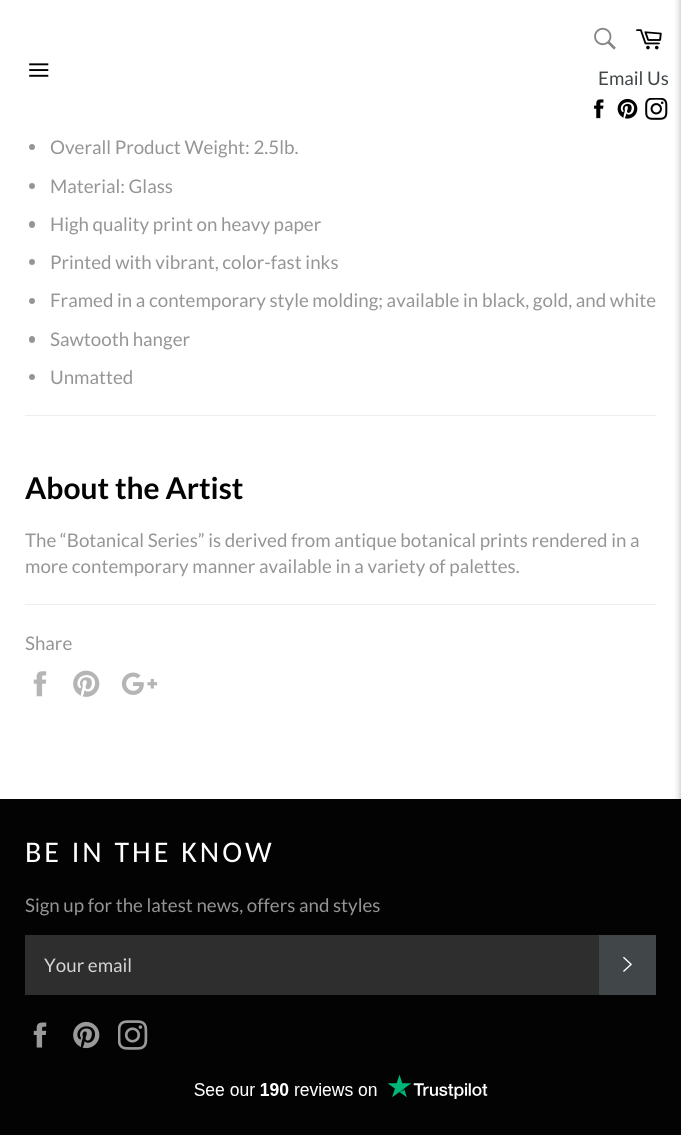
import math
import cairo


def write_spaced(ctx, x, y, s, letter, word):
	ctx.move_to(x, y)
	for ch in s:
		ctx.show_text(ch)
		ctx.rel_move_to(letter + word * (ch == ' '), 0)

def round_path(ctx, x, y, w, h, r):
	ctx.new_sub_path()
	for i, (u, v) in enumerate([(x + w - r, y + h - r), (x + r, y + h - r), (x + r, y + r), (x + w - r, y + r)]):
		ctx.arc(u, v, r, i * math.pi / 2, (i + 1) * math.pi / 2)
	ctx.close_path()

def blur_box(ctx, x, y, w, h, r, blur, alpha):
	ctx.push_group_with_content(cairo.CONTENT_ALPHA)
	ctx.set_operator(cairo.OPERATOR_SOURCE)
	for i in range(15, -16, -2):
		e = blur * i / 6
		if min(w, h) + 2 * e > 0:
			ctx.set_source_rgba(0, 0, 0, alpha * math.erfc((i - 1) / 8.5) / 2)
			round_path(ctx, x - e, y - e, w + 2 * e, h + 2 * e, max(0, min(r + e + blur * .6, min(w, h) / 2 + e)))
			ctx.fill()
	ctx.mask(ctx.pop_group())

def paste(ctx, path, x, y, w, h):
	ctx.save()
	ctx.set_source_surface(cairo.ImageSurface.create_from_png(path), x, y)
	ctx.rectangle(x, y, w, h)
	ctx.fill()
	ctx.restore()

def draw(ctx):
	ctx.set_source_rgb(1, 1, 1)
	ctx.paint()
	paste(ctx, 'media/1.png', 29, 63, 20, 14)
	paste(ctx, 'media/2.png', 594, 27, 22, 23)
	paste(ctx, 'media/3.png', 636, 29, 26, 21)
	ctx.select_font_face('Lato')
	ctx.set_font_size(18.75)
	ctx.set_source_rgb(0.255, 0.278, 0.286)
	ctx.move_to(598, 85)
	ctx.show_text('Email Us')
	paste(ctx, 'media/4.png', 594, 99, 10, 20)
	paste(ctx, 'media/5.png', 617, 98, 21, 21)
	paste(ctx, 'media/6.png', 645, 98, 23, 22)
	ctx.set_source_rgb(0.584, 0.584, 0.584)
	ctx.arc(32, 147, 3, 0, 2 * math.pi)
	ctx.fill()
	ctx.move_to(50, 154)
	ctx.show_text('Overall Product Weight: 2.5lb.')
	ctx.new_path()
	ctx.arc(32, 186, 3, 0, 2 * math.pi)
	ctx.fill()
	ctx.move_to(50, 193)
	ctx.show_text('Material: Glass')
	round_path(ctx, 29, 221, 6, 7, 3)
	ctx.fill()
	ctx.move_to(50, 231)
	ctx.show_text('High quality print on heavy paper')
	ctx.new_path()
	ctx.arc(32, 262, 3, 0, 2 * math.pi)
	ctx.fill()
	ctx.move_to(50, 269)
	ctx.show_text('Printed with vibrant, color-fast inks')
	ctx.new_path()
	ctx.arc(32, 301, 3, 0, 2 * math.pi)
	ctx.fill()
	ctx.move_to(50, 307)
	ctx.show_text('Framed in a contemporary style molding; available in black, gold, and white')
	round_path(ctx, 29, 336, 6, 7, 3)
	ctx.fill()
	ctx.move_to(50, 346)
	ctx.show_text('Sawtooth hanger')
	ctx.new_path()
	ctx.arc(32, 377, 3, 0, 2 * math.pi)
	ctx.fill()
	ctx.move_to(50, 384)
	ctx.show_text('Unmatted')
	ctx.set_source_rgb(0.933, 0.933, 0.933)
	ctx.rectangle(25, 415, 631, 1)
	ctx.fill()
	ctx.select_font_face('Lato', cairo.FONT_SLANT_NORMAL, cairo.FONT_WEIGHT_BOLD)
	ctx.set_font_size(30)
	ctx.set_source_rgb(0.012, 0.012, 0.012)
	ctx.move_to(25, 499)
	ctx.show_text('About the Artist')
	ctx.select_font_face('Lato')
	ctx.set_font_size(18.75)
	ctx.set_source_rgb(0.584, 0.584, 0.584)
	ctx.move_to(25, 547)
	ctx.show_text('The “Botanical Series” is derived from antique botanical prints rendered in a')
	ctx.move_to(25, 573)
	ctx.show_text('more contemporary manner available in a variety of palettes.')
	ctx.set_source_rgb(0.933, 0.933, 0.933)
	ctx.rectangle(25, 604, 631, 1)
	ctx.fill()
	ctx.set_source_rgb(0.584, 0.584, 0.584)
	ctx.move_to(25, 650)
	ctx.show_text('Share')
	paste(ctx, 'media/7.png', 33, 671, 14, 26)
	paste(ctx, 'media/8.png', 73, 670, 27, 27)
	paste(ctx, 'media/9.png', 121, 672, 37, 23)
	ctx.set_source_rgb(0.012, 0.012, 0.012)
	ctx.rectangle(0, 799, 681, 336)
	ctx.fill()
	ctx.select_font_face('Carlito')
	ctx.set_font_size(30)
	ctx.set_source_rgb(1, 1, 1)
	write_spaced(ctx, 25, 862, 'BE IN THE KNOW', 3, 0)
	ctx.select_font_face('Lato')
	ctx.set_font_size(18.75)
	ctx.set_source_rgb(0.584, 0.584, 0.584)
	ctx.move_to(25, 912)
	ctx.show_text('Sign up for the latest news, offers and styles')
	ctx.set_source_rgb(0.18, 0.18, 0.18)
	ctx.rectangle(25, 935, 574, 60)
	ctx.fill()
	ctx.set_source_rgb(0.835, 0.835, 0.835)
	ctx.move_to(44, 972)
	ctx.show_text('Your email')
	ctx.set_source_rgb(0.255, 0.278, 0.286)
	ctx.rectangle(599, 935, 57, 60)
	ctx.fill()
	paste(ctx, 'media/10.png', 623, 956, 9, 16)
	paste(ctx, 'media/11.png', 33, 1022, 14, 26)
	paste(ctx, 'media/12.png', 73, 1021, 27, 28)
	paste(ctx, 'media/13.png', 118, 1020, 30, 30)
	paste(ctx, 'media/14.png', 194, 1075, 294, 24)
	ctx.set_source_rgb(0, 0, 0)
	blur_box(ctx, 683, 0, 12, 1135, 0, 4.5, 0.5)


surface = cairo.ImageSurface(cairo.FORMAT_RGB24, 681, 1135)
ctx = cairo.Context(surface)
options = cairo.FontOptions()
options.set_hint_metrics(cairo.HINT_METRICS_OFF)
options.set_hint_style(cairo.HINT_STYLE_NONE)
ctx.set_font_options(options)
ctx.set_miter_limit(4)
draw(ctx)
surface.write_to_png('image.png')
